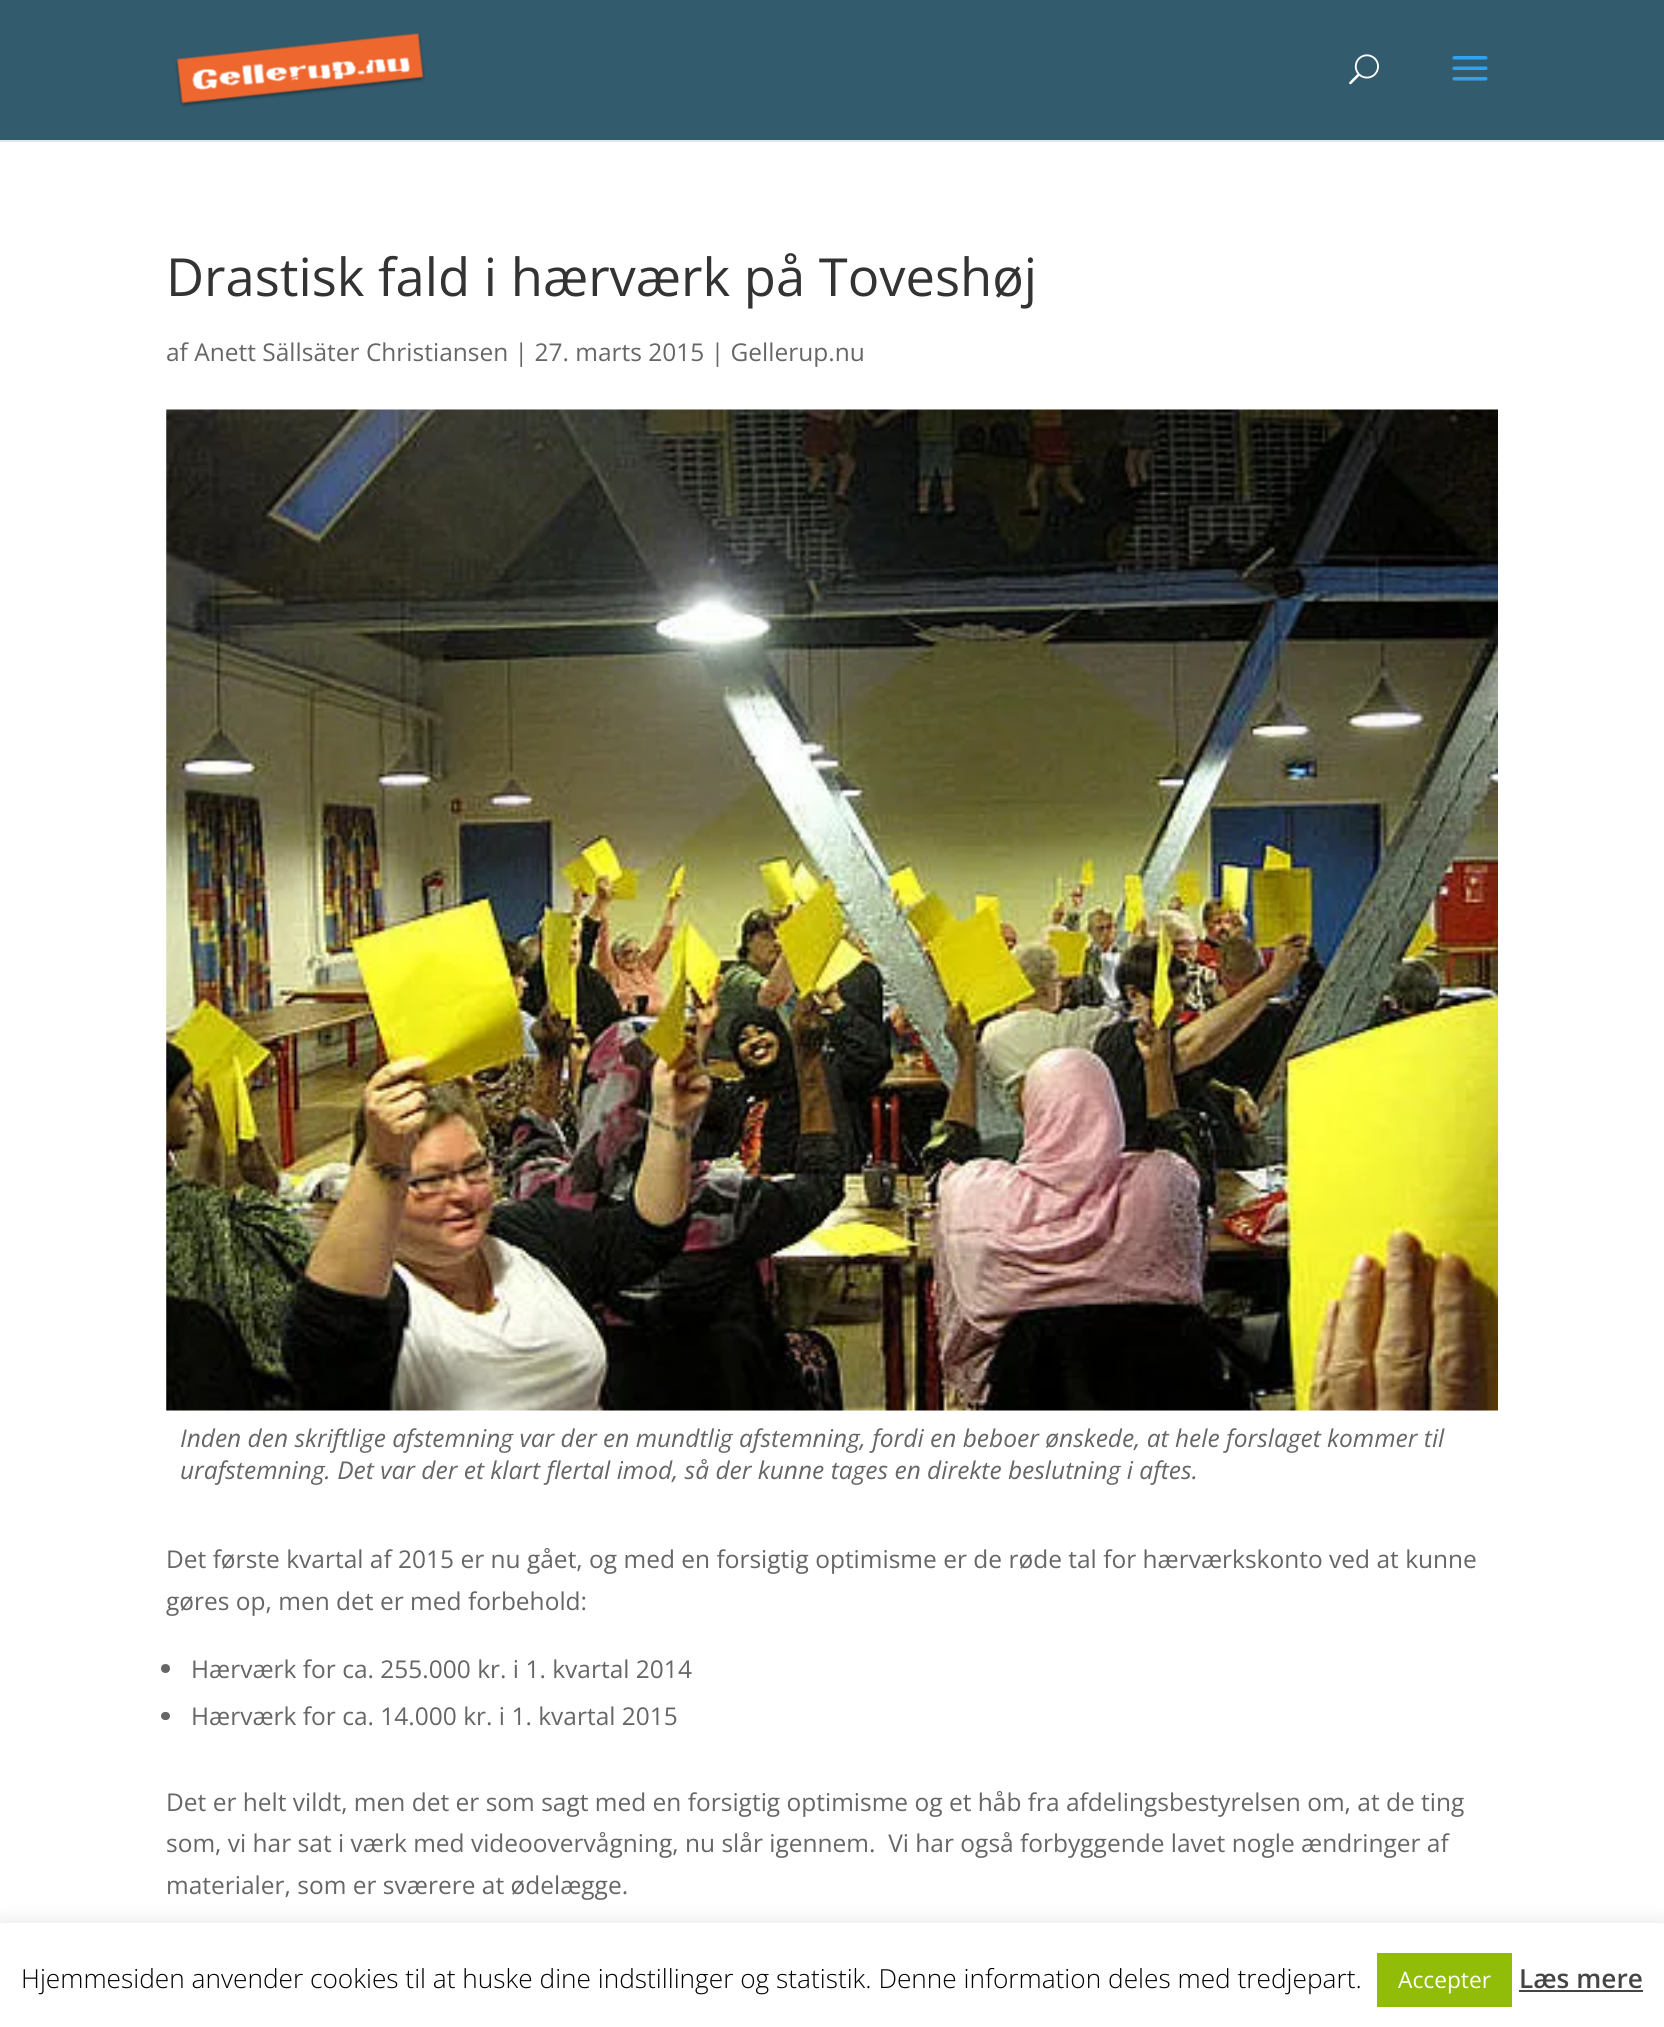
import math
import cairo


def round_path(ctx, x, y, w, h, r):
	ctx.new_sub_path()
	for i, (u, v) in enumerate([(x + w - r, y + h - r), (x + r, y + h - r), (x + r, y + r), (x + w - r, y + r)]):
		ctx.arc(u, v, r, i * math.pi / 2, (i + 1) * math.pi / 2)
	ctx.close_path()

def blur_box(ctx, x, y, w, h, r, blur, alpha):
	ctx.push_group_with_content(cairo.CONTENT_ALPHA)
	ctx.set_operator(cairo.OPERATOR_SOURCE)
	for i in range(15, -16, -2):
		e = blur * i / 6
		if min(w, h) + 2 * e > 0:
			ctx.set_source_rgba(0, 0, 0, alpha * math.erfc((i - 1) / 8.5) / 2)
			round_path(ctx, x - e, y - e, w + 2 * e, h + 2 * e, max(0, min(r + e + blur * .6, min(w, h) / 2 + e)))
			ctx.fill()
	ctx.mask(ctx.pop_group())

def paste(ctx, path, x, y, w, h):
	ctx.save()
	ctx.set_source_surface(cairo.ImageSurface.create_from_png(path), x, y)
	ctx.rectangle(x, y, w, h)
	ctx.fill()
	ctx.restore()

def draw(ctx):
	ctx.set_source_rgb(1, 1, 1)
	ctx.paint()
	ctx.set_source_rgb(0.902, 0.902, 0.902)
	ctx.rectangle(0, 140, 1664, 2)
	ctx.fill()
	ctx.set_source_rgb(0.2, 0.357, 0.431)
	ctx.rectangle(0, 0, 1664, 140)
	ctx.fill()
	paste(ctx, 'media/1.png', 175, 32, 250, 75)
	paste(ctx, 'media/2.png', 1349, 54, 30, 31)
	paste(ctx, 'media/3.png', 1452, 56, 36, 25)
	ctx.select_font_face('Open Sans')
	ctx.set_font_size(52.5)
	ctx.set_source_rgb(0.2, 0.2, 0.2)
	ctx.move_to(166, 296)
	ctx.show_text('Drastisk fald i hærværk på Toveshøj')
	ctx.set_font_size(24.5)
	ctx.set_source_rgb(0.4, 0.4, 0.4)
	ctx.move_to(166, 361)
	ctx.show_text('af Anett Sällsäter Christiansen | 27. marts 2015 | Gellerup.nu')
	paste(ctx, 'media/4.png', 166, 409, 1332, 1002)
	ctx.select_font_face('Open Sans', cairo.FONT_SLANT_ITALIC)
	ctx.move_to(180, 1447)
	ctx.show_text('Inden den skriftlige afstemning var der en mundtlig afstemning, fordi en beboer ønskede, at hele forslaget kommer til')
	ctx.move_to(180, 1479)
	ctx.show_text('urafstemning. Det var der et klart flertal imod, så der kunne tages en direkte beslutning i aftes.')
	ctx.select_font_face('Open Sans')
	ctx.move_to(166, 1568)
	ctx.show_text('Det første kvartal af 2015 er nu gået, og med en forsigtig optimisme er de røde tal for hærværkskonto ved at kunne')
	ctx.move_to(166, 1610)
	ctx.show_text('gøres op, men det er med forbehold:')
	ctx.new_path()
	ctx.arc(165.5, 1668.5, 4.5, 0, 2 * math.pi)
	ctx.fill()
	ctx.move_to(191, 1678)
	ctx.show_text('Hærværk for ca. 255.000 kr. i 1. kvartal 2014')
	round_path(ctx, 161, 1712, 9, 8, 4)
	ctx.fill()
	for x, y, s in [
		(191, 1725, 'Hærværk for ca. 14.000 kr. i 1. kvartal 2015'),
		(166, 1811, 'Det er helt vildt, men det er som sagt med en forsigtig optimisme og et håb fra afdelingsbestyrelsen om, at de ting'),
		(166, 1852, 'som, vi har sat i værk med videoovervågning, nu slår igennem.  Vi har også forbyggende lavet nogle ændringer af'),
		(166, 1894, 'materialer, som er sværere at ødelægge.'),
	]:
		ctx.move_to(x, y)
		ctx.show_text(s)
	ctx.set_source_rgb(0.675, 0.671, 0.671)
	blur_box(ctx, 0, 1922, 1664, 105, 0, 9, 0.3)
	ctx.set_source_rgb(1, 1, 1)
	ctx.rectangle(0, 1923, 1664, 104)
	ctx.fill()
	ctx.select_font_face('Open Sans Light')
	ctx.set_font_size(26.25)
	ctx.set_source_rgb(0, 0, 0)
	ctx.move_to(21, 1988)
	ctx.show_text('Hjemmesiden anvender cookies til at huske dine indstillinger og statistik. Denne information deles med tredjepart.')
	ctx.set_source_rgb(0.569, 0.741, 0.035)
	ctx.rectangle(1377, 1953, 135, 54)
	ctx.fill()
	ctx.select_font_face('Open Sans')
	ctx.set_font_size(22.75)
	ctx.set_source_rgb(1, 1, 1)
	ctx.move_to(1398, 1988)
	ctx.show_text('Accepter')
	ctx.select_font_face('Open Sans SemiBold')
	ctx.set_font_size(26.25)
	ctx.set_source_rgb(0.267, 0.267, 0.267)
	ctx.move_to(1519, 1988)
	ctx.show_text('Læs mere')
	ctx.rectangle(1519, 1990, 124, 2)
	ctx.fill()


surface = cairo.ImageSurface(cairo.FORMAT_RGB24, 1664, 2027)
ctx = cairo.Context(surface)
options = cairo.FontOptions()
options.set_hint_metrics(cairo.HINT_METRICS_OFF)
options.set_hint_style(cairo.HINT_STYLE_NONE)
ctx.set_font_options(options)
ctx.set_miter_limit(4)
draw(ctx)
surface.write_to_png('image.png')
